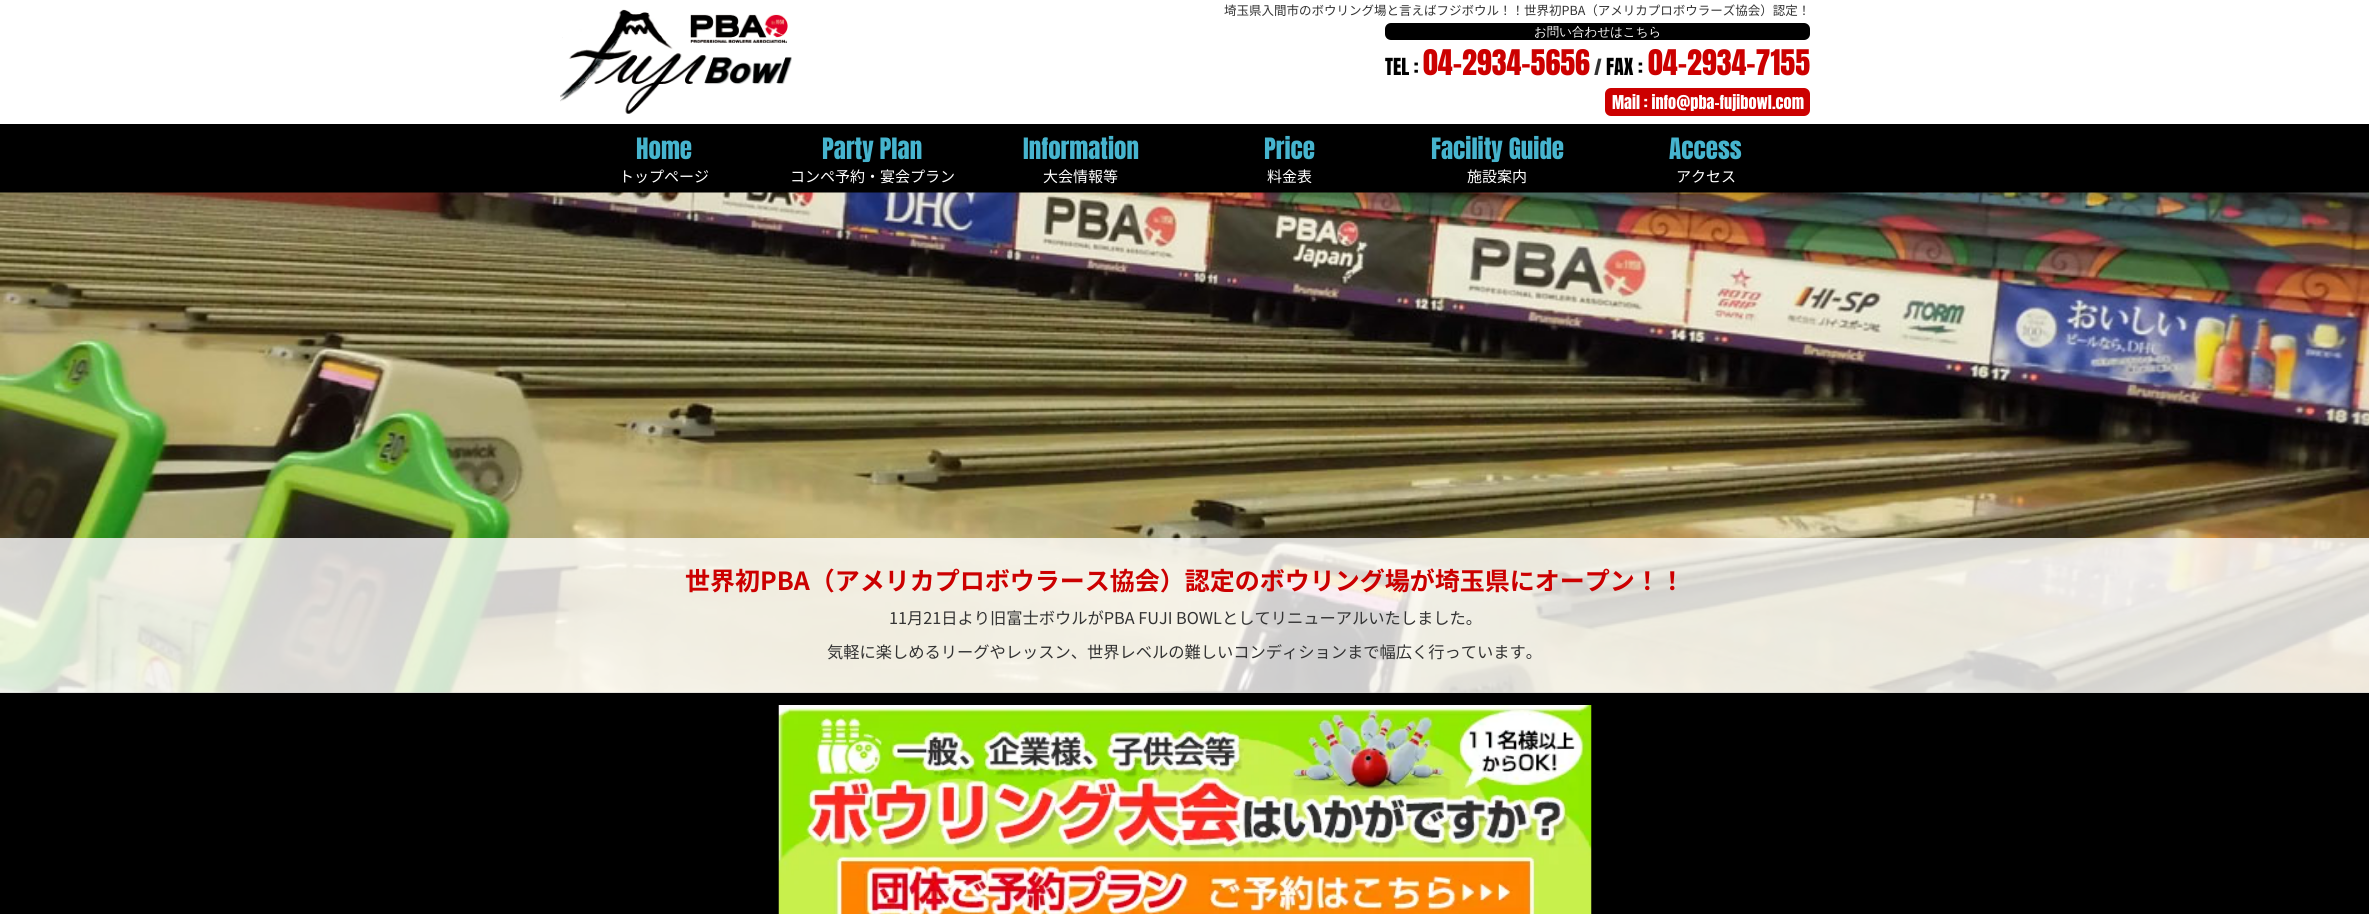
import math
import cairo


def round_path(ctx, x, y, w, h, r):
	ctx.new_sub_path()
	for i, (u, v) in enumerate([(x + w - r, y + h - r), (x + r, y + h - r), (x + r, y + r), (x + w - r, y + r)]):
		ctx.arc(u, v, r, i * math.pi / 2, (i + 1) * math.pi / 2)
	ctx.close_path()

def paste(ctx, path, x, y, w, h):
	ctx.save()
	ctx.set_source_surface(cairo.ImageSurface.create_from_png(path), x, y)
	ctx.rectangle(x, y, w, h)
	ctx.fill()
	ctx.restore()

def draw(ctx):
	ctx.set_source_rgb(1, 1, 1)
	ctx.paint()
	paste(ctx, 'media/1.png', 560, 9, 232, 105)
	ctx.select_font_face('Noto Sans JP')
	ctx.set_font_size(12.5)
	ctx.set_source_rgb(0.2, 0.2, 0.2)
	ctx.move_to(1224, 15)
	ctx.show_text('埼玉県入間市のボウリング場と言えばフジボウル！！世界初PBA（アメリカプロボウラーズ協会）認定！')
	ctx.set_source_rgb(0, 0, 0)
	round_path(ctx, 1385, 23, 425, 17, 6)
	ctx.fill()
	ctx.select_font_face('WenQuanYi Zen Hei Medium')
	ctx.set_source_rgb(1, 1, 1)
	ctx.move_to(1534, 36)
	ctx.show_text('お問い合わせはこちら')
	ctx.select_font_face('Anton')
	ctx.set_font_size(20)
	ctx.set_source_rgb(0, 0, 0)
	ctx.move_to(1385, 75)
	ctx.show_text('TEL :')
	ctx.set_font_size(30)
	ctx.set_source_rgb(0.8, 0, 0)
	ctx.move_to(1423, 75)
	ctx.show_text('04-2934-5656')
	ctx.set_font_size(19)
	ctx.set_source_rgb(0.2, 0.2, 0.2)
	ctx.move_to(1594, 75)
	ctx.show_text('/')
	ctx.set_font_size(20)
	ctx.set_source_rgb(0, 0, 0)
	ctx.move_to(1606, 75)
	ctx.show_text('FAX :')
	ctx.set_font_size(30)
	ctx.set_source_rgb(0.8, 0, 0)
	ctx.move_to(1648, 75)
	ctx.show_text('04-2934-7155')
	round_path(ctx, 1605, 88, 205, 28, 6)
	ctx.fill()
	ctx.set_font_size(16.25)
	ctx.set_source_rgb(1, 1, 1)
	ctx.move_to(1612, 109)
	ctx.show_text('Mail : info@pba-fujibowl.com')
	ctx.set_source_rgb(0, 0, 0)
	ctx.rectangle(0, 124, 2369, 69)
	ctx.fill()
	ctx.set_font_size(25)
	ctx.set_source_rgb(0.275, 0.706, 0.808)
	ctx.move_to(636, 159)
	ctx.show_text('Home')
	ctx.select_font_face('Noto Sans JP')
	ctx.set_font_size(15)
	ctx.set_source_rgb(1, 1, 1)
	ctx.move_to(619, 182)
	ctx.show_text('トップページ')
	ctx.select_font_face('Anton')
	ctx.set_font_size(25)
	ctx.set_source_rgb(0.275, 0.706, 0.808)
	ctx.move_to(822, 159)
	ctx.show_text('Party Plan')
	ctx.select_font_face('Noto Sans JP')
	ctx.set_font_size(15)
	ctx.set_source_rgb(1, 1, 1)
	ctx.move_to(790, 182)
	ctx.show_text('コンペ予約・宴会プラン')
	ctx.select_font_face('Anton')
	ctx.set_font_size(25)
	ctx.set_source_rgb(0.275, 0.706, 0.808)
	ctx.move_to(1023, 159)
	ctx.show_text('Information')
	ctx.select_font_face('Noto Sans JP')
	ctx.set_font_size(15)
	ctx.set_source_rgb(1, 1, 1)
	ctx.move_to(1043, 182)
	ctx.show_text('大会情報等')
	ctx.select_font_face('Anton')
	ctx.set_font_size(25)
	ctx.set_source_rgb(0.275, 0.706, 0.808)
	ctx.move_to(1264, 159)
	ctx.show_text('Price')
	ctx.select_font_face('Noto Sans JP')
	ctx.set_font_size(15)
	ctx.set_source_rgb(1, 1, 1)
	ctx.move_to(1267, 182)
	ctx.show_text('料金表')
	ctx.select_font_face('Anton')
	ctx.set_font_size(25)
	ctx.set_source_rgb(0.275, 0.706, 0.808)
	ctx.move_to(1431, 159)
	ctx.show_text('Facility Guide')
	ctx.select_font_face('Noto Sans JP')
	ctx.set_font_size(15)
	ctx.set_source_rgb(1, 1, 1)
	ctx.move_to(1467, 182)
	ctx.show_text('施設案内')
	ctx.select_font_face('Anton')
	ctx.set_font_size(25)
	ctx.set_source_rgb(0.275, 0.706, 0.808)
	ctx.move_to(1669, 159)
	ctx.show_text('Access')
	ctx.select_font_face('Noto Sans JP')
	ctx.set_font_size(15)
	ctx.set_source_rgb(1, 1, 1)
	ctx.move_to(1676, 182)
	ctx.show_text('アクセス')
	ctx.set_source_rgb(0, 0, 0)
	ctx.rectangle(0, 692, 2369, 222)
	ctx.fill()
	paste(ctx, 'media/2.png', 0, 192, 2369, 501)
	ctx.set_source_rgba(1, 1, 1, 0.8)
	ctx.rectangle(0, 538, 2369, 155)
	ctx.fill()
	ctx.select_font_face('Noto Sans JP', cairo.FONT_SLANT_NORMAL, cairo.FONT_WEIGHT_BOLD)
	ctx.set_font_size(25)
	ctx.set_source_rgb(0.8, 0, 0)
	ctx.move_to(685, 590)
	ctx.show_text('世界初PBA（アメリカプロボウラース協会）認定のボウリング場が埼玉県にオープン！！')
	ctx.select_font_face('Noto Sans JP')
	ctx.set_font_size(16.25)
	ctx.set_source_rgb(0.2, 0.2, 0.2)
	ctx.move_to(889, 624)
	ctx.show_text('11月21日より旧富士ボウルがPBA FUJI BOWLとしてリニューアルいたしました。')
	ctx.move_to(827, 658)
	ctx.show_text('気軽に楽しめるリーグやレッスン、世界レベルの難しいコンディションまで幅広く行っています。')
	paste(ctx, 'media/3.png', 778, 705, 814, 209)


surface = cairo.ImageSurface(cairo.FORMAT_RGB24, 2369, 914)
ctx = cairo.Context(surface)
options = cairo.FontOptions()
options.set_hint_metrics(cairo.HINT_METRICS_OFF)
options.set_hint_style(cairo.HINT_STYLE_NONE)
ctx.set_font_options(options)
ctx.set_miter_limit(4)
draw(ctx)
surface.write_to_png('image.png')
